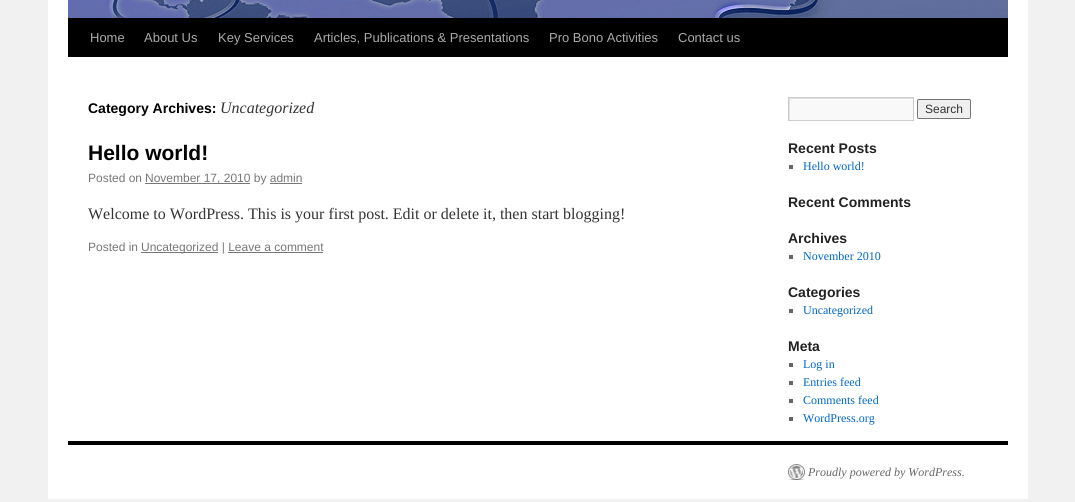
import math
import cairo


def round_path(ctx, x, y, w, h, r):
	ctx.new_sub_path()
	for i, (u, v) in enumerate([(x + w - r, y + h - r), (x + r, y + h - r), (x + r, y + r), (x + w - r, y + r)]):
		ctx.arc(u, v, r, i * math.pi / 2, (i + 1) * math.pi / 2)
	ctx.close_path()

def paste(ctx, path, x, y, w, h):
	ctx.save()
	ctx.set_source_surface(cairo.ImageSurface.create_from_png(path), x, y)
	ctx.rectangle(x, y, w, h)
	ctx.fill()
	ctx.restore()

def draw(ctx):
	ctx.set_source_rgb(0.945, 0.945, 0.945)
	ctx.paint()
	ctx.set_source_rgb(1, 1, 1)
	ctx.rectangle(48, 0, 980, 499)
	ctx.fill()
	ctx.set_source_rgb(0, 0, 0)
	ctx.rectangle(68, 18, 940, 39)
	ctx.fill()
	paste(ctx, 'media/1.png', 68, 0, 940, 18)
	ctx.select_font_face('Liberation Sans')
	ctx.set_font_size(13)
	ctx.set_source_rgb(0.667, 0.667, 0.667)
	for x, y, s in [
		(90, 42, 'Home'),
		(144, 42, 'About Us'),
		(218, 42, 'Key Services'),
		(314, 42, 'Articles, Publications & Presentations'),
		(549, 42, 'Pro Bono Activities'),
		(678, 42, 'Contact us'),
	]:
		ctx.move_to(x, y)
		ctx.show_text(s)
	ctx.select_font_face('Liberation Sans', cairo.FONT_SLANT_NORMAL, cairo.FONT_WEIGHT_BOLD)
	ctx.set_font_size(14)
	ctx.set_source_rgb(0, 0, 0)
	ctx.move_to(88, 113)
	ctx.show_text('Category Archives:')
	ctx.select_font_face('Liberation Serif', cairo.FONT_SLANT_ITALIC)
	ctx.set_font_size(16)
	ctx.set_source_rgb(0.2, 0.2, 0.2)
	ctx.move_to(220, 113)
	ctx.show_text('Uncategorized')
	ctx.select_font_face('Liberation Sans', cairo.FONT_SLANT_NORMAL, cairo.FONT_WEIGHT_BOLD)
	ctx.set_font_size(21)
	ctx.set_source_rgb(0, 0, 0)
	ctx.move_to(88, 160)
	ctx.show_text('Hello world!')
	ctx.select_font_face('Liberation Sans')
	ctx.set_font_size(12)
	ctx.set_source_rgb(0.467, 0.467, 0.467)
	ctx.move_to(88, 182)
	ctx.show_text('Posted on')
	ctx.rectangle(145, 183, 105, 1)
	ctx.fill()
	ctx.move_to(145, 182)
	ctx.show_text('November 17, 2010 by admin')
	ctx.rectangle(270, 183, 32, 1)
	ctx.fill()
	ctx.select_font_face('Liberation Serif')
	ctx.set_font_size(16)
	ctx.set_source_rgb(0.2, 0.2, 0.2)
	ctx.move_to(88, 219)
	ctx.show_text('Welcome to WordPress. This is your first post. Edit or delete it, then start blogging!')
	ctx.select_font_face('Liberation Sans')
	ctx.set_font_size(12)
	ctx.set_source_rgb(0.467, 0.467, 0.467)
	ctx.move_to(88, 251)
	ctx.show_text('Posted in')
	ctx.rectangle(141, 252, 77, 1)
	ctx.fill()
	ctx.move_to(141, 251)
	ctx.show_text('Uncategorized | Leave a comment')
	ctx.rectangle(228, 252, 95, 1)
	ctx.fill()
	ctx.set_source_rgb(0.976, 0.976, 0.976)
	ctx.rectangle(790, 99, 123, 21)
	ctx.fill()
	ctx.save()
	ctx.rectangle(789, 98, 124, 22)
	ctx.clip()
	ctx.set_source_rgb(0.878, 0.878, 0.878)
	ctx.set_fill_rule(cairo.FILL_RULE_EVEN_ODD)
	ctx.new_path()
	ctx.move_to(690, -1)
	ctx.line_to(1012, -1)
	ctx.line_to(1012, 219)
	ctx.line_to(690, 219)
	ctx.close_path()
	ctx.move_to(790, 99)
	ctx.line_to(914, 99)
	ctx.line_to(914, 121)
	ctx.line_to(790, 121)
	ctx.close_path()
	ctx.fill()
	ctx.restore()
	ctx.rectangle(788.5, 97.5, 125, 23)
	ctx.set_source_rgb(0.8, 0.8, 0.8)
	ctx.set_line_width(1)
	ctx.stroke()
	ctx.set_source_rgb(0.937, 0.937, 0.937)
	round_path(ctx, 917.5, 99.5, 53, 19, 1.5)
	ctx.fill_preserve()
	ctx.set_source_rgb(0.463, 0.463, 0.463)
	ctx.stroke()
	ctx.set_source_rgb(0.2, 0.2, 0.2)
	ctx.move_to(925, 113)
	ctx.show_text('Search')
	ctx.select_font_face('Liberation Sans', cairo.FONT_SLANT_NORMAL, cairo.FONT_WEIGHT_BOLD)
	ctx.set_font_size(14)
	ctx.set_source_rgb(0.133, 0.133, 0.133)
	ctx.move_to(788, 153)
	ctx.show_text('Recent Posts')
	ctx.set_source_rgb(0.4, 0.4, 0.4)
	ctx.rectangle(789, 165, 4, 4)
	ctx.fill()
	ctx.select_font_face('Liberation Serif')
	ctx.set_font_size(12)
	ctx.set_source_rgb(0, 0.4, 0.8)
	ctx.move_to(803, 170)
	ctx.show_text('Hello world!')
	ctx.select_font_face('Liberation Sans', cairo.FONT_SLANT_NORMAL, cairo.FONT_WEIGHT_BOLD)
	ctx.set_font_size(14)
	ctx.set_source_rgb(0.133, 0.133, 0.133)
	ctx.move_to(788, 207)
	ctx.show_text('Recent Comments')
	ctx.move_to(788, 243)
	ctx.show_text('Archives')
	ctx.set_source_rgb(0.4, 0.4, 0.4)
	ctx.rectangle(789, 255, 4, 4)
	ctx.fill()
	ctx.select_font_face('Liberation Serif')
	ctx.set_font_size(12)
	ctx.set_source_rgb(0, 0.4, 0.8)
	ctx.move_to(803, 260)
	ctx.show_text('November 2010')
	ctx.select_font_face('Liberation Sans', cairo.FONT_SLANT_NORMAL, cairo.FONT_WEIGHT_BOLD)
	ctx.set_font_size(14)
	ctx.set_source_rgb(0.133, 0.133, 0.133)
	ctx.move_to(788, 297)
	ctx.show_text('Categories')
	ctx.set_source_rgb(0.4, 0.4, 0.4)
	ctx.rectangle(789, 309, 4, 4)
	ctx.fill()
	ctx.select_font_face('Liberation Serif')
	ctx.set_font_size(12)
	ctx.set_source_rgb(0, 0.4, 0.8)
	ctx.move_to(803, 314)
	ctx.show_text('Uncategorized')
	ctx.select_font_face('Liberation Sans', cairo.FONT_SLANT_NORMAL, cairo.FONT_WEIGHT_BOLD)
	ctx.set_font_size(14)
	ctx.set_source_rgb(0.133, 0.133, 0.133)
	ctx.move_to(788, 351)
	ctx.show_text('Meta')
	ctx.set_source_rgb(0.4, 0.4, 0.4)
	ctx.rectangle(789, 363, 4, 4)
	ctx.fill()
	ctx.select_font_face('Liberation Serif')
	ctx.set_font_size(12)
	ctx.set_source_rgb(0, 0.4, 0.8)
	ctx.move_to(803, 368)
	ctx.show_text('Log in')
	ctx.set_source_rgb(0.4, 0.4, 0.4)
	ctx.rectangle(789, 381, 4, 4)
	ctx.fill()
	ctx.set_source_rgb(0, 0.4, 0.8)
	ctx.move_to(803, 386)
	ctx.show_text('Entries feed')
	ctx.set_source_rgb(0.4, 0.4, 0.4)
	ctx.rectangle(789, 399, 4, 4)
	ctx.fill()
	ctx.set_source_rgb(0, 0.4, 0.8)
	ctx.move_to(803, 404)
	ctx.show_text('Comments feed')
	ctx.set_source_rgb(0.4, 0.4, 0.4)
	ctx.rectangle(789, 417, 4, 4)
	ctx.fill()
	ctx.set_source_rgb(0, 0.4, 0.8)
	ctx.move_to(803, 422)
	ctx.show_text('WordPress.org')
	ctx.set_source_rgb(0, 0, 0)
	ctx.rectangle(68, 441, 940, 4)
	ctx.fill()
	paste(ctx, 'media/2.png', 788, 464, 17, 16)
	ctx.select_font_face('Liberation Serif', cairo.FONT_SLANT_ITALIC)
	ctx.set_source_rgb(0.4, 0.4, 0.4)
	ctx.move_to(808, 476)
	ctx.show_text('Proudly powered by WordPress.')


surface = cairo.ImageSurface(cairo.FORMAT_RGB24, 1075, 502)
ctx = cairo.Context(surface)
options = cairo.FontOptions()
options.set_hint_metrics(cairo.HINT_METRICS_OFF)
options.set_hint_style(cairo.HINT_STYLE_NONE)
ctx.set_font_options(options)
ctx.set_miter_limit(4)
draw(ctx)
surface.write_to_png('image.png')
